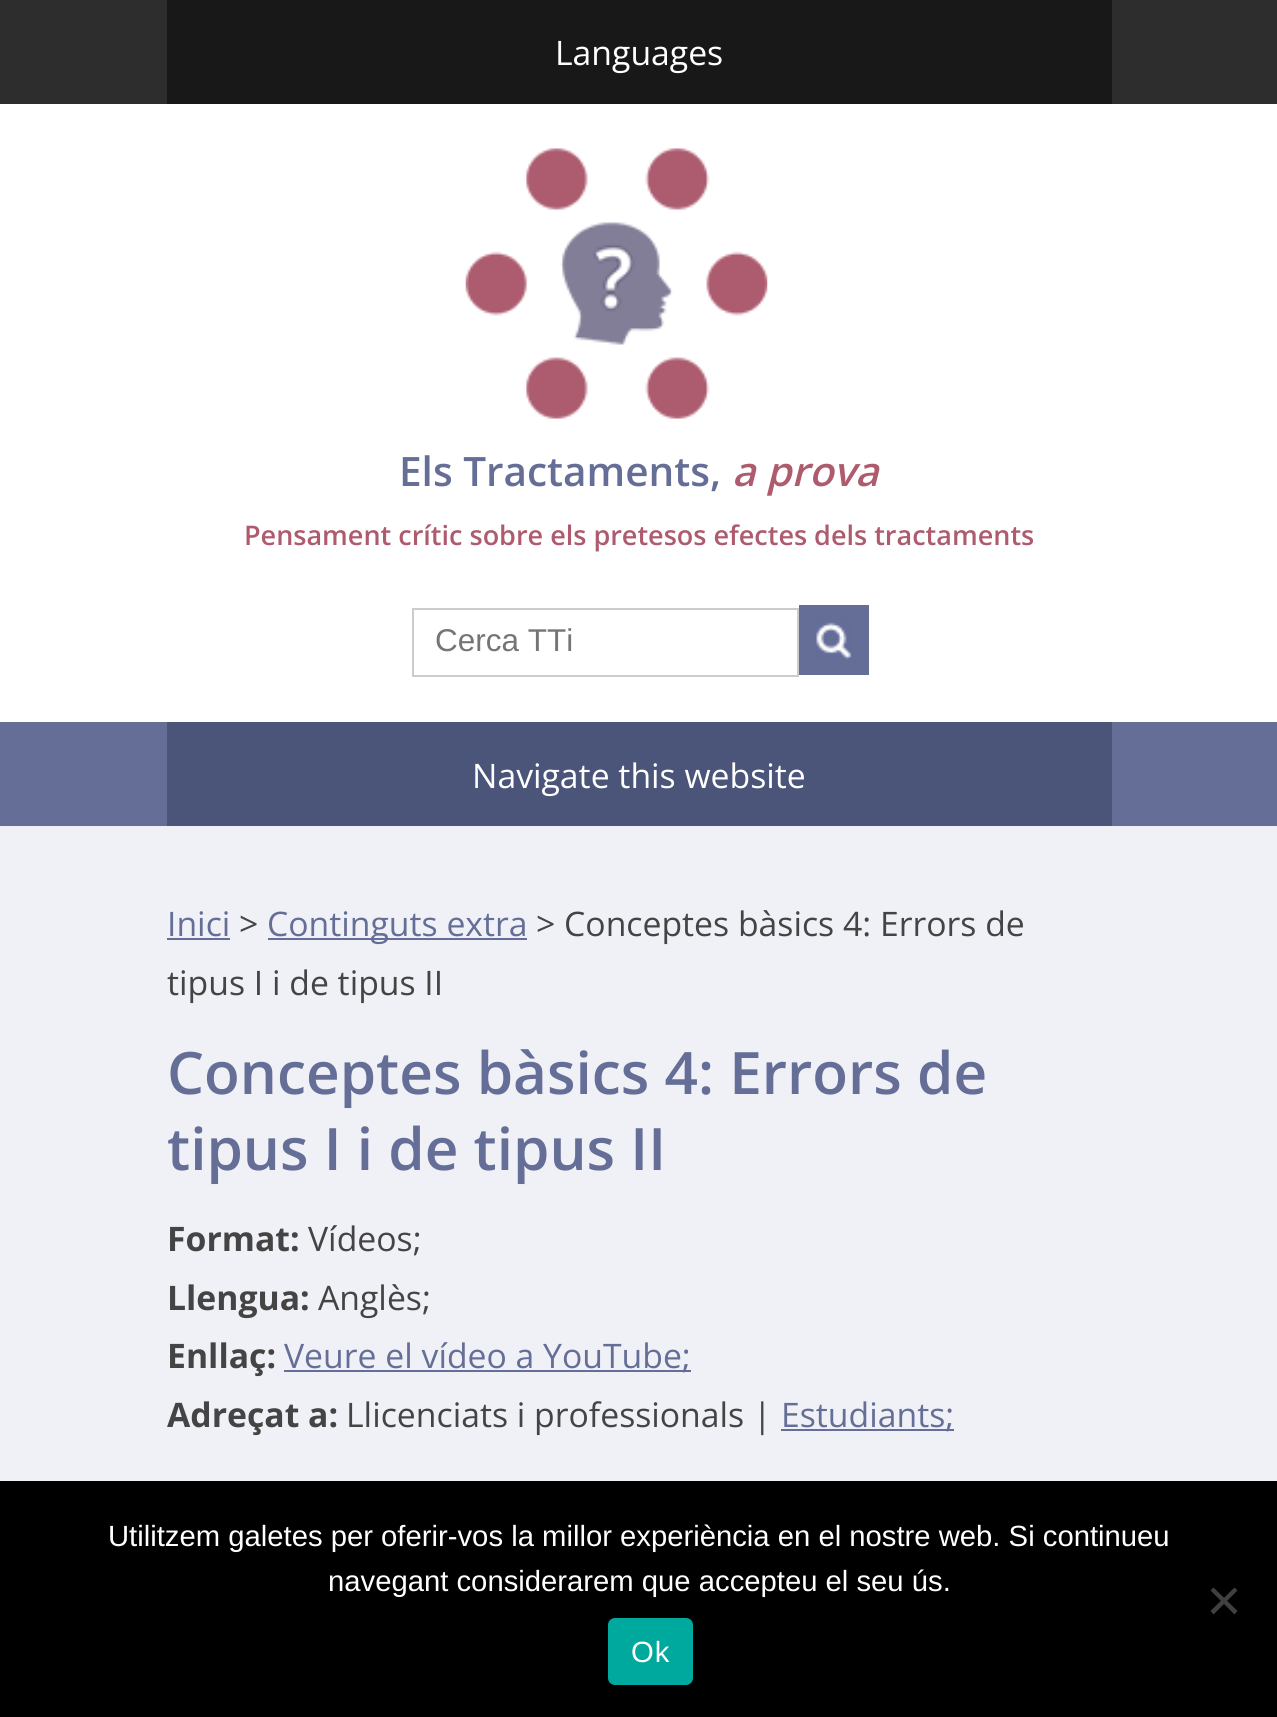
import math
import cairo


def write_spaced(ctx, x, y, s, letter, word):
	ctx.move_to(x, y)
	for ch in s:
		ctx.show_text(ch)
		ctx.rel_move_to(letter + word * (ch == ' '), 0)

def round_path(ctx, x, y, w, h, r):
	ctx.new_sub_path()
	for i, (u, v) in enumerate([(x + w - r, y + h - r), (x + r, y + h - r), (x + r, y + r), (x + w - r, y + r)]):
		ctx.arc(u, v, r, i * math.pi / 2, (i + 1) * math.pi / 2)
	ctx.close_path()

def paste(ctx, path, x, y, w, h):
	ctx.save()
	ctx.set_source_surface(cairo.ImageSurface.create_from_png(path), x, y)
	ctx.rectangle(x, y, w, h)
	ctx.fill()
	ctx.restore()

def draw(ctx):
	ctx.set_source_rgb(0.176, 0.176, 0.176)
	ctx.paint()
	ctx.set_source_rgb(0.094, 0.094, 0.094)
	ctx.rectangle(167, 0, 945, 104)
	ctx.fill()
	ctx.select_font_face('Open Sans')
	ctx.set_font_size(33.75)
	ctx.set_source_rgb(1, 1, 1)
	ctx.move_to(555, 65)
	ctx.show_text('Languages')
	ctx.rectangle(0, 104, 1277, 618)
	ctx.fill()
	paste(ctx, 'media/1.png', 465, 148, 303, 271)
	ctx.select_font_face('Open Sans SemiBold')
	ctx.set_font_size(40.5)
	ctx.set_source_rgb(0.396, 0.431, 0.588)
	ctx.move_to(399, 486)
	ctx.show_text('Els Tractaments,')
	ctx.select_font_face('Open Sans SemiBold', cairo.FONT_SLANT_ITALIC)
	ctx.set_source_rgb(0.682, 0.357, 0.431)
	ctx.move_to(732, 486)
	ctx.show_text('a prova')
	ctx.select_font_face('Open Sans SemiBold')
	ctx.set_font_size(27)
	ctx.move_to(244, 545)
	ctx.show_text('Pensament crític sobre els pretesos efectes dels tractaments')
	ctx.rectangle(413, 609, 385, 67)
	ctx.set_source_rgb(0.8, 0.8, 0.8)
	ctx.stroke()
	ctx.select_font_face('Liberation Sans')
	ctx.set_font_size(31.5)
	ctx.set_source_rgb(0.459, 0.459, 0.459)
	ctx.move_to(435, 651)
	ctx.show_text('Cerca TTi')
	ctx.set_source_rgb(0.392, 0.431, 0.592)
	ctx.rectangle(799, 605, 70, 70)
	ctx.fill()
	paste(ctx, 'media/2.png', 816, 622, 36, 38)
	ctx.rectangle(0, 722, 1277, 104)
	ctx.fill()
	ctx.set_source_rgb(0.294, 0.329, 0.475)
	ctx.rectangle(167, 722, 945, 104)
	ctx.fill()
	ctx.select_font_face('Open Sans')
	ctx.set_font_size(33.75)
	ctx.set_source_rgb(1, 1, 1)
	ctx.move_to(472, 788)
	ctx.show_text('Navigate this website')
	ctx.set_source_rgb(0.941, 0.945, 0.965)
	ctx.rectangle(0, 826, 1277, 655)
	ctx.fill()
	ctx.set_source_rgb(0.396, 0.431, 0.588)
	ctx.move_to(167, 936)
	ctx.show_text('Inici')
	ctx.set_source_rgb(0.396, 0.427, 0.596)
	ctx.rectangle(167, 938, 63, 2)
	ctx.fill()
	ctx.set_source_rgb(0.267, 0.267, 0.267)
	ctx.move_to(239, 936)
	ctx.show_text('>')
	ctx.set_source_rgb(0.396, 0.427, 0.596)
	ctx.rectangle(268, 938, 259, 2)
	ctx.fill()
	ctx.set_source_rgb(0.396, 0.431, 0.588)
	ctx.move_to(267, 936)
	ctx.show_text('Continguts extra')
	ctx.set_source_rgb(0.267, 0.267, 0.267)
	ctx.move_to(536, 936)
	ctx.show_text('> Conceptes bàsics 4: Errors de')
	ctx.move_to(167, 995)
	ctx.show_text('tipus I i de tipus II')
	ctx.select_font_face('Open Sans SemiBold')
	ctx.set_font_size(58.5)
	ctx.set_source_rgb(0.396, 0.431, 0.588)
	ctx.move_to(167, 1094)
	ctx.show_text('Conceptes bàsics 4: Errors de')
	ctx.move_to(167, 1170)
	ctx.show_text('tipus I i de tipus II')
	ctx.select_font_face('Open Sans', cairo.FONT_SLANT_NORMAL, cairo.FONT_WEIGHT_BOLD)
	ctx.set_font_size(33.75)
	ctx.set_source_rgb(0.267, 0.267, 0.267)
	ctx.move_to(167, 1251)
	ctx.show_text('Format:')
	ctx.select_font_face('Open Sans')
	ctx.move_to(308, 1251)
	ctx.show_text('Vídeos;')
	ctx.select_font_face('Open Sans', cairo.FONT_SLANT_NORMAL, cairo.FONT_WEIGHT_BOLD)
	ctx.move_to(167, 1310)
	ctx.show_text('Llengua:')
	ctx.select_font_face('Open Sans')
	ctx.move_to(318, 1310)
	ctx.show_text('Anglès;')
	ctx.select_font_face('Open Sans', cairo.FONT_SLANT_NORMAL, cairo.FONT_WEIGHT_BOLD)
	ctx.move_to(167, 1368)
	ctx.show_text('Enllaç:')
	ctx.set_source_rgb(0.396, 0.427, 0.596)
	ctx.rectangle(284, 1370, 407, 2)
	ctx.fill()
	ctx.select_font_face('Open Sans')
	ctx.set_source_rgb(0.396, 0.431, 0.588)
	ctx.move_to(284, 1368)
	ctx.show_text('Veure el vídeo a YouTube;')
	ctx.select_font_face('Open Sans', cairo.FONT_SLANT_NORMAL, cairo.FONT_WEIGHT_BOLD)
	ctx.set_source_rgb(0.267, 0.267, 0.267)
	ctx.move_to(167, 1427)
	ctx.show_text('Adreçat a:')
	ctx.select_font_face('Open Sans')
	ctx.move_to(346, 1427)
	ctx.show_text('Llicenciats i professionals |')
	ctx.set_source_rgb(0.396, 0.427, 0.596)
	ctx.rectangle(781, 1429, 173, 2)
	ctx.fill()
	ctx.set_source_rgb(0.396, 0.431, 0.588)
	ctx.move_to(781, 1427)
	ctx.show_text('Estudiants;')
	ctx.set_source_rgb(0, 0, 0)
	ctx.rectangle(0, 1481, 1277, 236)
	ctx.fill()
	ctx.select_font_face('Liberation Sans')
	ctx.set_font_size(29.25)
	ctx.set_source_rgb(1, 1, 1)
	ctx.move_to(108, 1546)
	ctx.show_text('Utilitzem galetes per oferir-vos la millor experiència en el nostre web. Si continueu')
	ctx.move_to(328, 1591)
	ctx.show_text('navegant considerarem que accepteu el seu ús.')
	ctx.set_source_rgb(0.251, 0.251, 0.251)
	ctx.new_path()
	ctx.move_to(1234.5, 1587.5)
	ctx.line_to(1237.5, 1590.5)
	ctx.line_to(1213.5, 1614.5)
	ctx.line_to(1210.5, 1611)
	ctx.close_path()
	ctx.fill()
	ctx.new_path()
	ctx.move_to(1210.5, 1590.5)
	ctx.line_to(1213.5, 1587.5)
	ctx.line_to(1237.5, 1611)
	ctx.line_to(1234.5, 1614.5)
	ctx.close_path()
	ctx.fill()
	ctx.set_source_rgb(0, 0.663, 0.616)
	round_path(ctx, 608, 1618, 85, 67, 7)
	ctx.fill()
	ctx.set_source_rgb(1, 1, 1)
	write_spaced(ctx, 631, 1662, 'Ok', 1, 0)


surface = cairo.ImageSurface(cairo.FORMAT_RGB24, 1277, 1717)
ctx = cairo.Context(surface)
options = cairo.FontOptions()
options.set_hint_metrics(cairo.HINT_METRICS_OFF)
options.set_hint_style(cairo.HINT_STYLE_NONE)
ctx.set_font_options(options)
ctx.set_miter_limit(4)
draw(ctx)
surface.write_to_png('image.png')
